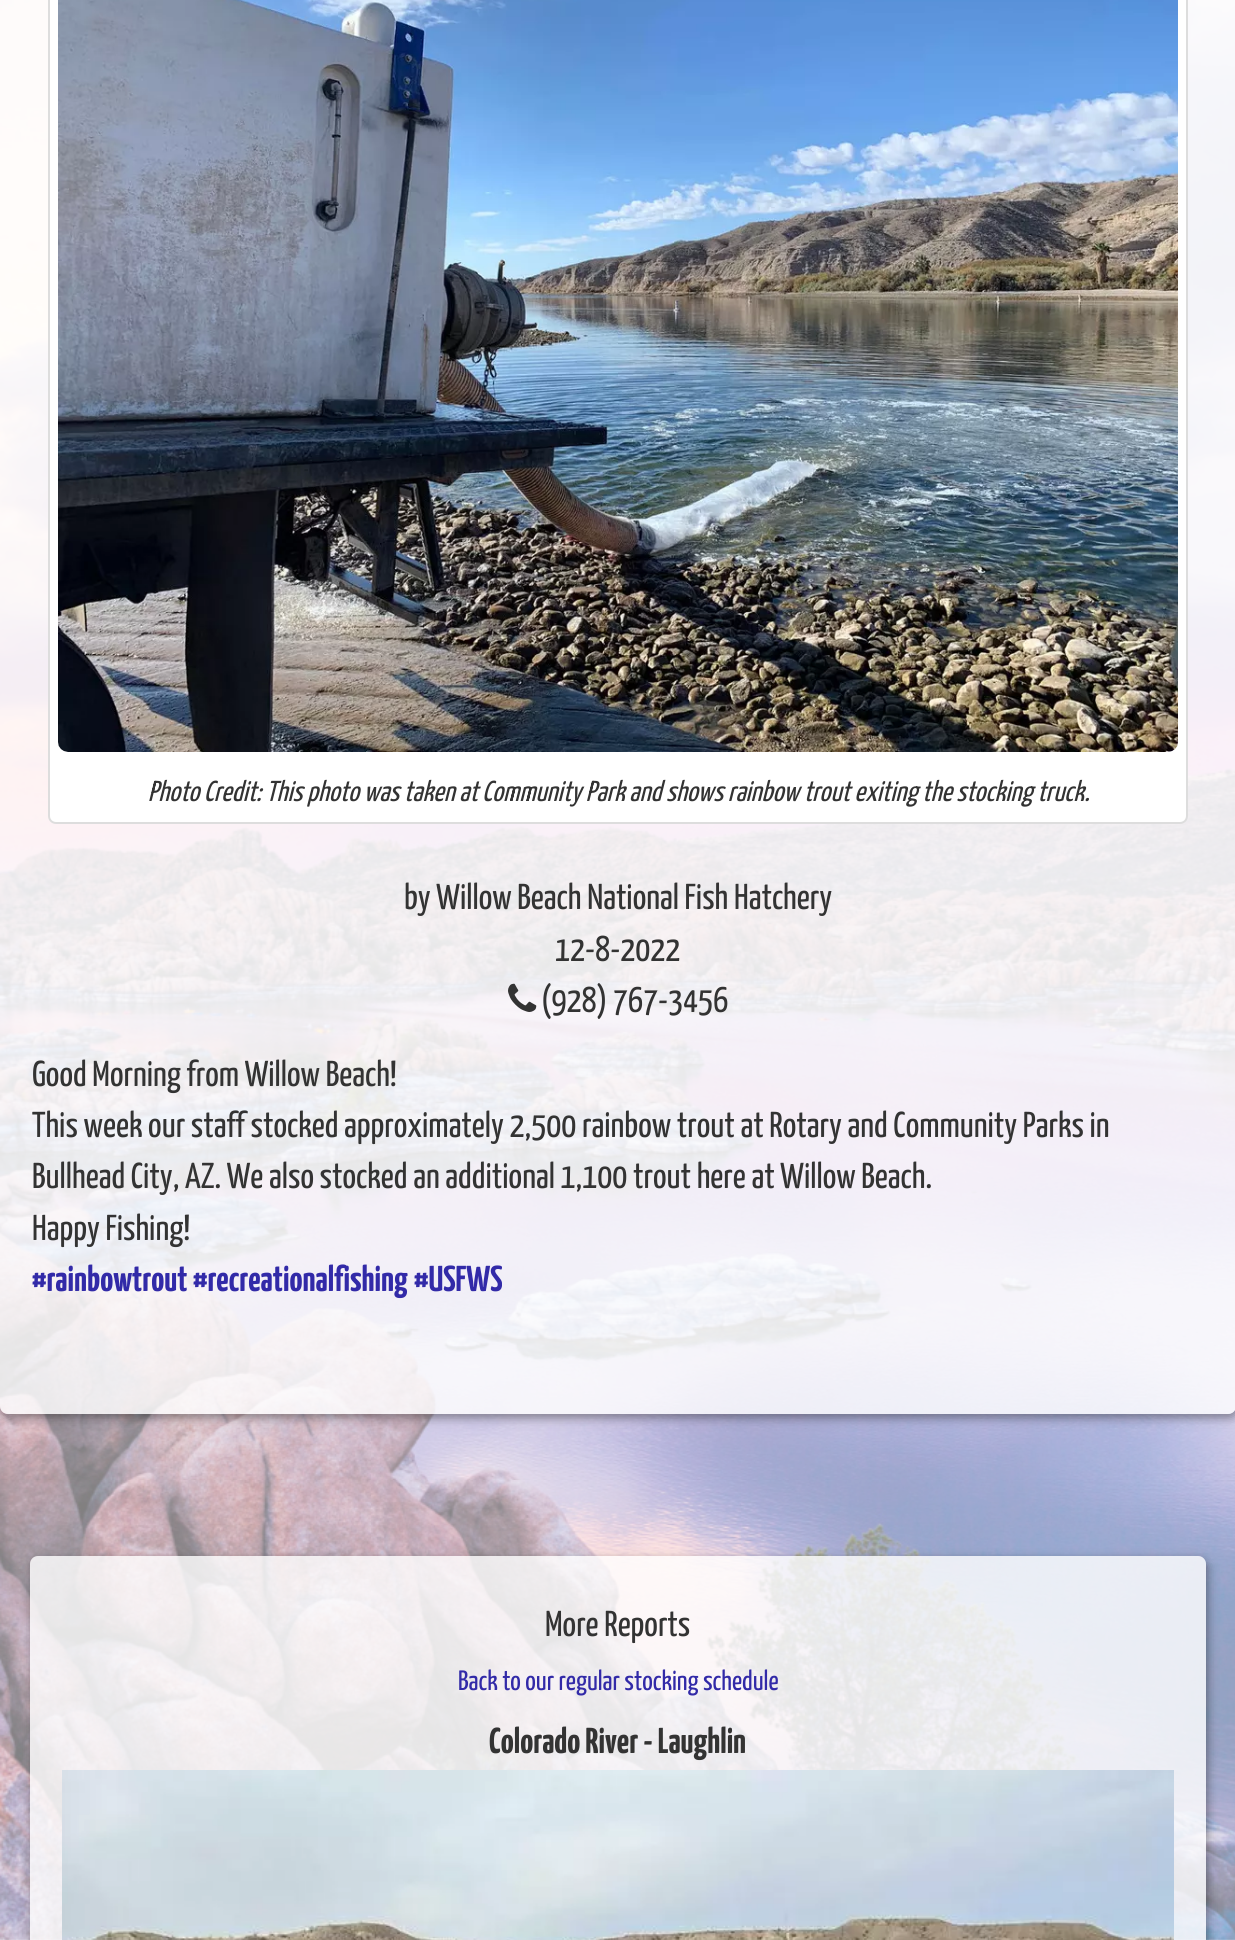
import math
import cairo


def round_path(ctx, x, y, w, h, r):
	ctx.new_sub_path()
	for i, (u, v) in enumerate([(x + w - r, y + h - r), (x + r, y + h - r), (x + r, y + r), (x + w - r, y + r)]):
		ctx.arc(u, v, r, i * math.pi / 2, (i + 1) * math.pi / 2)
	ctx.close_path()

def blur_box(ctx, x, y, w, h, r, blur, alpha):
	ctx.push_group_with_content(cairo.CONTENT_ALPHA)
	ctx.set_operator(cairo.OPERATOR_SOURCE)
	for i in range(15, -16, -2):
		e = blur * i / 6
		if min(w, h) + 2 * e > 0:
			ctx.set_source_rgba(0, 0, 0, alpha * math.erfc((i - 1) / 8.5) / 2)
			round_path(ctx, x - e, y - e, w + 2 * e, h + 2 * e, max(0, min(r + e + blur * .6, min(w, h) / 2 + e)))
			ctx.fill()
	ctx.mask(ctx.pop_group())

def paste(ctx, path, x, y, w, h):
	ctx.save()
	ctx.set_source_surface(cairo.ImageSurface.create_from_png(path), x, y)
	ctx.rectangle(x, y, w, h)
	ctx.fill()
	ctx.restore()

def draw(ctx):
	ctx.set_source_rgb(1, 1, 1)
	ctx.paint()
	paste(ctx, 'media/1.png', 0, 0, 1235, 1940)
	ctx.save()
	ctx.set_fill_rule(cairo.FILL_RULE_EVEN_ODD)
	ctx.new_path()
	ctx.move_to(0, 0)
	ctx.line_to(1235, 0)
	ctx.line_to(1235, 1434)
	ctx.line_to(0, 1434)
	ctx.close_path()
	ctx.move_to(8, -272)
	ctx.line_to(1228, -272)
	ctx.curve_to(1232.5, -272, 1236, -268.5, 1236, -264)
	ctx.line_to(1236, 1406)
	ctx.curve_to(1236, 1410.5, 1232.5, 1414, 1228, 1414)
	ctx.line_to(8, 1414)
	ctx.curve_to(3.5, 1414, 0, 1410.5, 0, 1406)
	ctx.line_to(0, -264)
	ctx.curve_to(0, -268.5, 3.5, -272, 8, -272)
	ctx.close_path()
	ctx.clip()
	ctx.set_source_rgb(0.024, 0.024, 0.024)
	blur_box(ctx, 2, -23, 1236, 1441, 8, 5, 0.4)
	ctx.restore()
	ctx.set_source_rgba(1, 1, 1, 0.8)
	round_path(ctx, 0, -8, 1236, 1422, 8)
	ctx.fill()
	ctx.set_source_rgb(1, 1, 1)
	round_path(ctx, 49, -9, 1138, 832, 7)
	ctx.fill_preserve()
	ctx.set_source_rgb(0.867, 0.867, 0.867)
	ctx.stroke()
	paste(ctx, 'media/2.png', 58, 0, 1120, 752)
	ctx.select_font_face('Yanone Kaffeesatz', cairo.FONT_SLANT_ITALIC)
	ctx.set_font_size(28.8)
	ctx.set_source_rgb(0.2, 0.2, 0.2)
	ctx.move_to(148, 801)
	ctx.show_text('Photo Credit: This photo was taken at Community Park and shows rainbow trout exiting the stocking truck.')
	ctx.select_font_face('Yanone Kaffeesatz')
	ctx.set_font_size(36)
	ctx.move_to(404, 909)
	ctx.show_text('by Willow Beach National Fish Hatchery')
	ctx.move_to(555, 961)
	ctx.show_text('12-8-2022')
	paste(ctx, 'media/3.png', 508, 983, 29, 29)
	for x, y, s in [
		(541, 1012, '(928) 767-3456'),
		(32, 1086, 'Good Morning from Willow Beach!'),
		(32, 1137, 'This week our staff stocked approximately 2,500 rainbow trout at Rotary and Community Parks in'),
		(32, 1188, 'Bullhead City, AZ. We also stocked an additional 1,100 trout here at Willow Beach.'),
		(32, 1240, 'Happy Fishing!'),
	]:
		ctx.move_to(x, y)
		ctx.show_text(s)
	ctx.select_font_face('Yanone Kaffeesatz', cairo.FONT_SLANT_NORMAL, cairo.FONT_WEIGHT_BOLD)
	ctx.set_source_rgb(0.196, 0.165, 0.659)
	for x, y, s in [
		(32, 1291, '#rainbowtrout'),
		(193, 1291, '#recreationalfishing'),
		(414, 1291, '#USFWS'),
	]:
		ctx.move_to(x, y)
		ctx.show_text(s)
	ctx.save()
	ctx.set_fill_rule(cairo.FILL_RULE_EVEN_ODD)
	ctx.new_path()
	ctx.move_to(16, 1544)
	ctx.line_to(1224, 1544)
	ctx.line_to(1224, 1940)
	ctx.line_to(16, 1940)
	ctx.close_path()
	ctx.move_to(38, 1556)
	ctx.line_to(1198, 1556)
	ctx.curve_to(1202.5, 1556, 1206, 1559.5, 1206, 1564)
	ctx.line_to(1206, 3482)
	ctx.curve_to(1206, 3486.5, 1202.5, 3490, 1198, 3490)
	ctx.line_to(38, 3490)
	ctx.curve_to(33.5, 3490, 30, 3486.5, 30, 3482)
	ctx.line_to(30, 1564)
	ctx.curve_to(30, 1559.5, 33.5, 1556, 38, 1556)
	ctx.close_path()
	ctx.clip()
	ctx.set_source_rgb(0.024, 0.024, 0.024)
	blur_box(ctx, 32, 1560, 1176, 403, 8, 5, 0.4)
	ctx.restore()
	ctx.set_source_rgba(1, 1, 1, 0.8)
	round_path(ctx, 30, 1556, 1176, 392, 8)
	ctx.fill()
	ctx.select_font_face('Yanone Kaffeesatz')
	ctx.set_source_rgb(0.2, 0.2, 0.2)
	ctx.move_to(545, 1636)
	ctx.show_text('More Reports')
	ctx.set_font_size(28)
	ctx.set_source_rgb(0.196, 0.165, 0.659)
	ctx.move_to(458, 1690)
	ctx.show_text('Back to our regular stocking schedule')
	ctx.select_font_face('Yanone Kaffeesatz', cairo.FONT_SLANT_NORMAL, cairo.FONT_WEIGHT_BOLD)
	ctx.set_font_size(36)
	ctx.set_source_rgb(0.2, 0.2, 0.2)
	ctx.move_to(489, 1753)
	ctx.show_text('Colorado River - Laughlin')
	paste(ctx, 'media/4.png', 62, 1770, 1112, 170)


surface = cairo.ImageSurface(cairo.FORMAT_RGB24, 1235, 1940)
ctx = cairo.Context(surface)
options = cairo.FontOptions()
options.set_hint_metrics(cairo.HINT_METRICS_OFF)
options.set_hint_style(cairo.HINT_STYLE_NONE)
ctx.set_font_options(options)
ctx.set_miter_limit(4)
draw(ctx)
surface.write_to_png('image.png')
